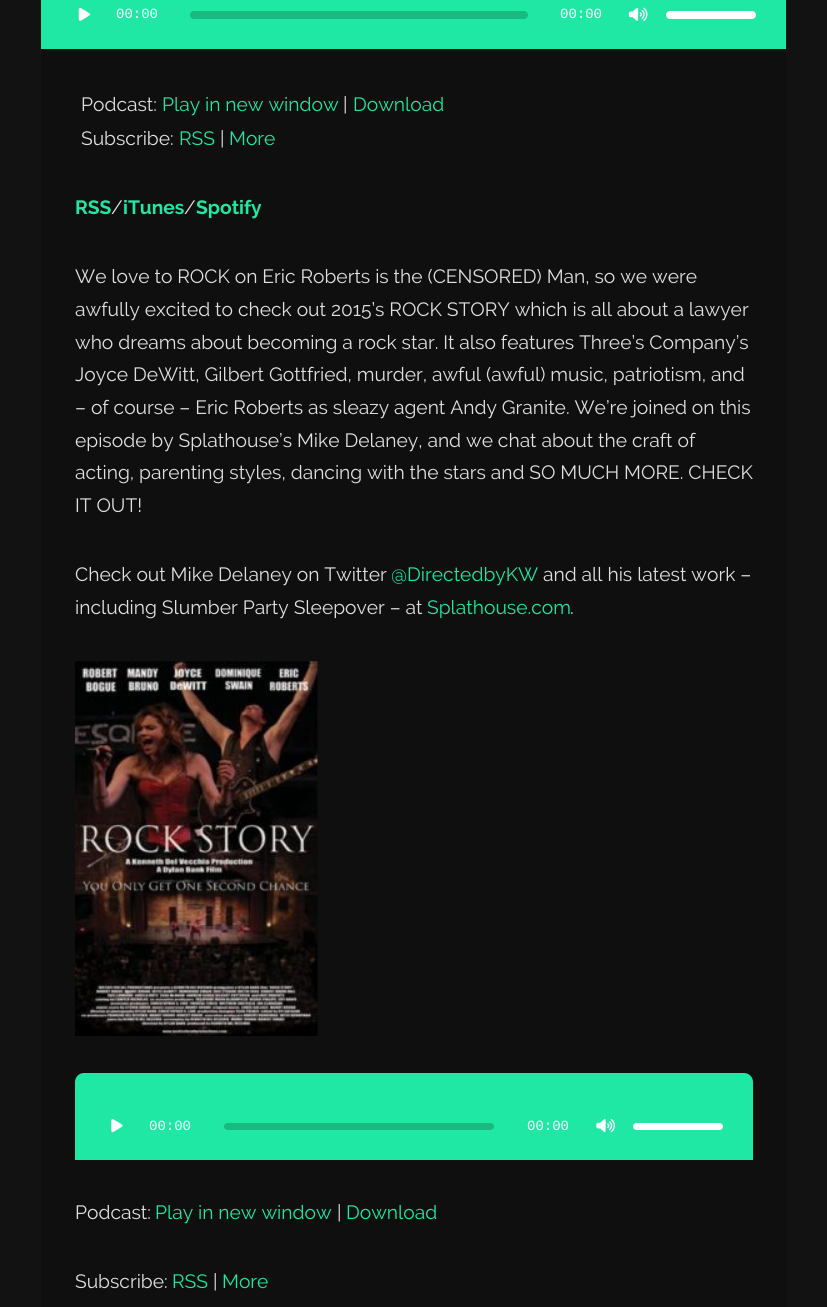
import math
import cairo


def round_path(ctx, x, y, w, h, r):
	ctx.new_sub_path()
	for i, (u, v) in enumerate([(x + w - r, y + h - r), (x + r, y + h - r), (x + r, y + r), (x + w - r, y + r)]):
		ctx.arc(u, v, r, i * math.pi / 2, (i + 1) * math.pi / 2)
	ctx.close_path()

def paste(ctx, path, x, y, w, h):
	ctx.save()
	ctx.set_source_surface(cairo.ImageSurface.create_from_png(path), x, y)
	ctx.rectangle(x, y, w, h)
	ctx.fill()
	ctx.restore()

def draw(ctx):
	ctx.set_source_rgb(0.071, 0.071, 0.071)
	ctx.paint()
	ctx.set_source_rgb(0.059, 0.059, 0.059)
	ctx.rectangle(41, 49, 745, 1258)
	ctx.fill()
	ctx.set_source_rgb(0.118, 0.91, 0.639)
	ctx.rectangle(41, 0, 745, 49)
	ctx.fill()
	paste(ctx, 'media/1.png', 78, 7, 12, 14)
	ctx.select_font_face('Liberation Mono')
	ctx.set_font_size(14)
	ctx.set_source_rgb(1, 1, 1)
	ctx.move_to(116, 18)
	ctx.show_text('00:00')
	ctx.set_source_rgb(0.094, 0.729, 0.51)
	round_path(ctx, 190, 11, 338, 8, 4)
	ctx.fill()
	ctx.set_source_rgb(1, 1, 1)
	ctx.move_to(560, 18)
	ctx.show_text('00:00')
	paste(ctx, 'media/2.png', 628, 7, 20, 14)
	round_path(ctx, 666, 11, 90, 8, 4)
	ctx.fill()
	ctx.select_font_face('Raleway')
	ctx.set_font_size(19.25)
	ctx.set_source_rgb(0.878, 0.878, 0.878)
	ctx.move_to(81, 111)
	ctx.show_text('Podcast:')
	ctx.set_source_rgb(0.118, 0.91, 0.639)
	ctx.move_to(162, 111)
	ctx.show_text('Play in new window')
	ctx.set_source_rgb(0.878, 0.878, 0.878)
	ctx.move_to(343, 111)
	ctx.show_text('|')
	ctx.set_source_rgb(0.118, 0.91, 0.639)
	ctx.move_to(353, 111)
	ctx.show_text('Download')
	ctx.set_source_rgb(0.878, 0.878, 0.878)
	ctx.move_to(81, 145)
	ctx.show_text('Subscribe:')
	ctx.set_source_rgb(0.118, 0.91, 0.639)
	ctx.move_to(179, 145)
	ctx.show_text('RSS')
	ctx.set_source_rgb(0.878, 0.878, 0.878)
	ctx.move_to(220, 145)
	ctx.show_text('|')
	ctx.set_source_rgb(0.118, 0.91, 0.639)
	ctx.move_to(229, 145)
	ctx.show_text('More')
	ctx.select_font_face('Raleway', cairo.FONT_SLANT_NORMAL, cairo.FONT_WEIGHT_BOLD)
	ctx.move_to(75, 214)
	ctx.show_text('RSS')
	ctx.select_font_face('Raleway')
	ctx.set_source_rgb(0.878, 0.878, 0.878)
	ctx.move_to(111, 214)
	ctx.show_text('/')
	ctx.select_font_face('Raleway', cairo.FONT_SLANT_NORMAL, cairo.FONT_WEIGHT_BOLD)
	ctx.set_source_rgb(0.118, 0.91, 0.639)
	ctx.move_to(123, 214)
	ctx.show_text('iTunes')
	ctx.select_font_face('Raleway')
	ctx.set_source_rgb(0.878, 0.878, 0.878)
	ctx.move_to(184, 214)
	ctx.show_text('/')
	ctx.select_font_face('Raleway', cairo.FONT_SLANT_NORMAL, cairo.FONT_WEIGHT_BOLD)
	ctx.set_source_rgb(0.118, 0.91, 0.639)
	ctx.move_to(196, 214)
	ctx.show_text('Spotify')
	ctx.select_font_face('Raleway')
	ctx.set_source_rgb(0.878, 0.878, 0.878)
	for x, y, s in [
		(75, 283, 'We love to ROCK on Eric Roberts is the (CENSORED) Man, so we were'),
		(75, 316, 'awfully excited to check out 2015’s ROCK STORY which is all about a lawyer'),
		(75, 349, 'who dreams about becoming a rock star. It also features Three’s Company’s'),
		(75, 381, 'Joyce DeWitt, Gilbert Gottfried, murder, awful (awful) music, patriotism, and'),
		(75, 414, '– of course – Eric Roberts as sleazy agent Andy Granite. We’re joined on this'),
		(75, 447, 'episode by Splathouse’s Mike Delaney, and we chat about the craft of'),
		(75, 479, 'acting, parenting styles, dancing with the stars and SO MUCH MORE. CHECK'),
		(75, 512, 'IT OUT!'),
		(75, 581, 'Check out Mike Delaney on Twitter'),
	]:
		ctx.move_to(x, y)
		ctx.show_text(s)
	ctx.set_source_rgb(0.118, 0.91, 0.639)
	ctx.move_to(391, 581)
	ctx.show_text('@DirectedbyKW')
	ctx.set_source_rgb(0.878, 0.878, 0.878)
	ctx.move_to(543, 581)
	ctx.show_text('and all his latest work –')
	ctx.move_to(75, 614)
	ctx.show_text('including Slumber Party Sleepover – at')
	ctx.set_source_rgb(0.118, 0.91, 0.639)
	ctx.move_to(427, 614)
	ctx.show_text('Splathouse.com')
	ctx.set_source_rgb(0.878, 0.878, 0.878)
	ctx.move_to(570, 614)
	ctx.show_text('.')
	paste(ctx, 'media/3.png', 75, 661, 243, 375)
	ctx.set_source_rgb(0.118, 0.91, 0.639)
	round_path(ctx, 75, 1073, 678, 87, 9)
	ctx.fill()
	ctx.rectangle(75, 1151, 678, 9)
	ctx.fill()
	paste(ctx, 'media/4.png', 111, 1119, 12, 14)
	ctx.select_font_face('Liberation Mono')
	ctx.set_font_size(14)
	ctx.set_source_rgb(1, 1, 1)
	ctx.move_to(149, 1130)
	ctx.show_text('00:00')
	ctx.set_source_rgb(0.094, 0.729, 0.51)
	round_path(ctx, 224, 1123, 270, 7, 3.5)
	ctx.fill()
	ctx.set_source_rgb(1, 1, 1)
	ctx.move_to(527, 1130)
	ctx.show_text('00:00')
	paste(ctx, 'media/5.png', 596, 1119, 19, 14)
	round_path(ctx, 633, 1123, 90, 7, 3.5)
	ctx.fill()
	ctx.select_font_face('Raleway')
	ctx.set_font_size(19.25)
	ctx.set_source_rgb(0.878, 0.878, 0.878)
	ctx.move_to(75, 1219)
	ctx.show_text('Podcast:')
	ctx.set_source_rgb(0.118, 0.91, 0.639)
	ctx.move_to(155, 1219)
	ctx.show_text('Play in new window')
	ctx.set_source_rgb(0.878, 0.878, 0.878)
	ctx.move_to(337, 1219)
	ctx.show_text('|')
	ctx.set_source_rgb(0.118, 0.91, 0.639)
	ctx.move_to(346, 1219)
	ctx.show_text('Download')
	ctx.set_source_rgb(0.878, 0.878, 0.878)
	ctx.move_to(75, 1288)
	ctx.show_text('Subscribe:')
	ctx.set_source_rgb(0.118, 0.91, 0.639)
	ctx.move_to(172, 1288)
	ctx.show_text('RSS')
	ctx.set_source_rgb(0.878, 0.878, 0.878)
	ctx.move_to(213, 1288)
	ctx.show_text('|')
	ctx.set_source_rgb(0.118, 0.91, 0.639)
	ctx.move_to(222, 1288)
	ctx.show_text('More')


surface = cairo.ImageSurface(cairo.FORMAT_RGB24, 827, 1307)
ctx = cairo.Context(surface)
options = cairo.FontOptions()
options.set_hint_metrics(cairo.HINT_METRICS_OFF)
options.set_hint_style(cairo.HINT_STYLE_NONE)
ctx.set_font_options(options)
ctx.set_miter_limit(4)
draw(ctx)
surface.write_to_png('image.png')
